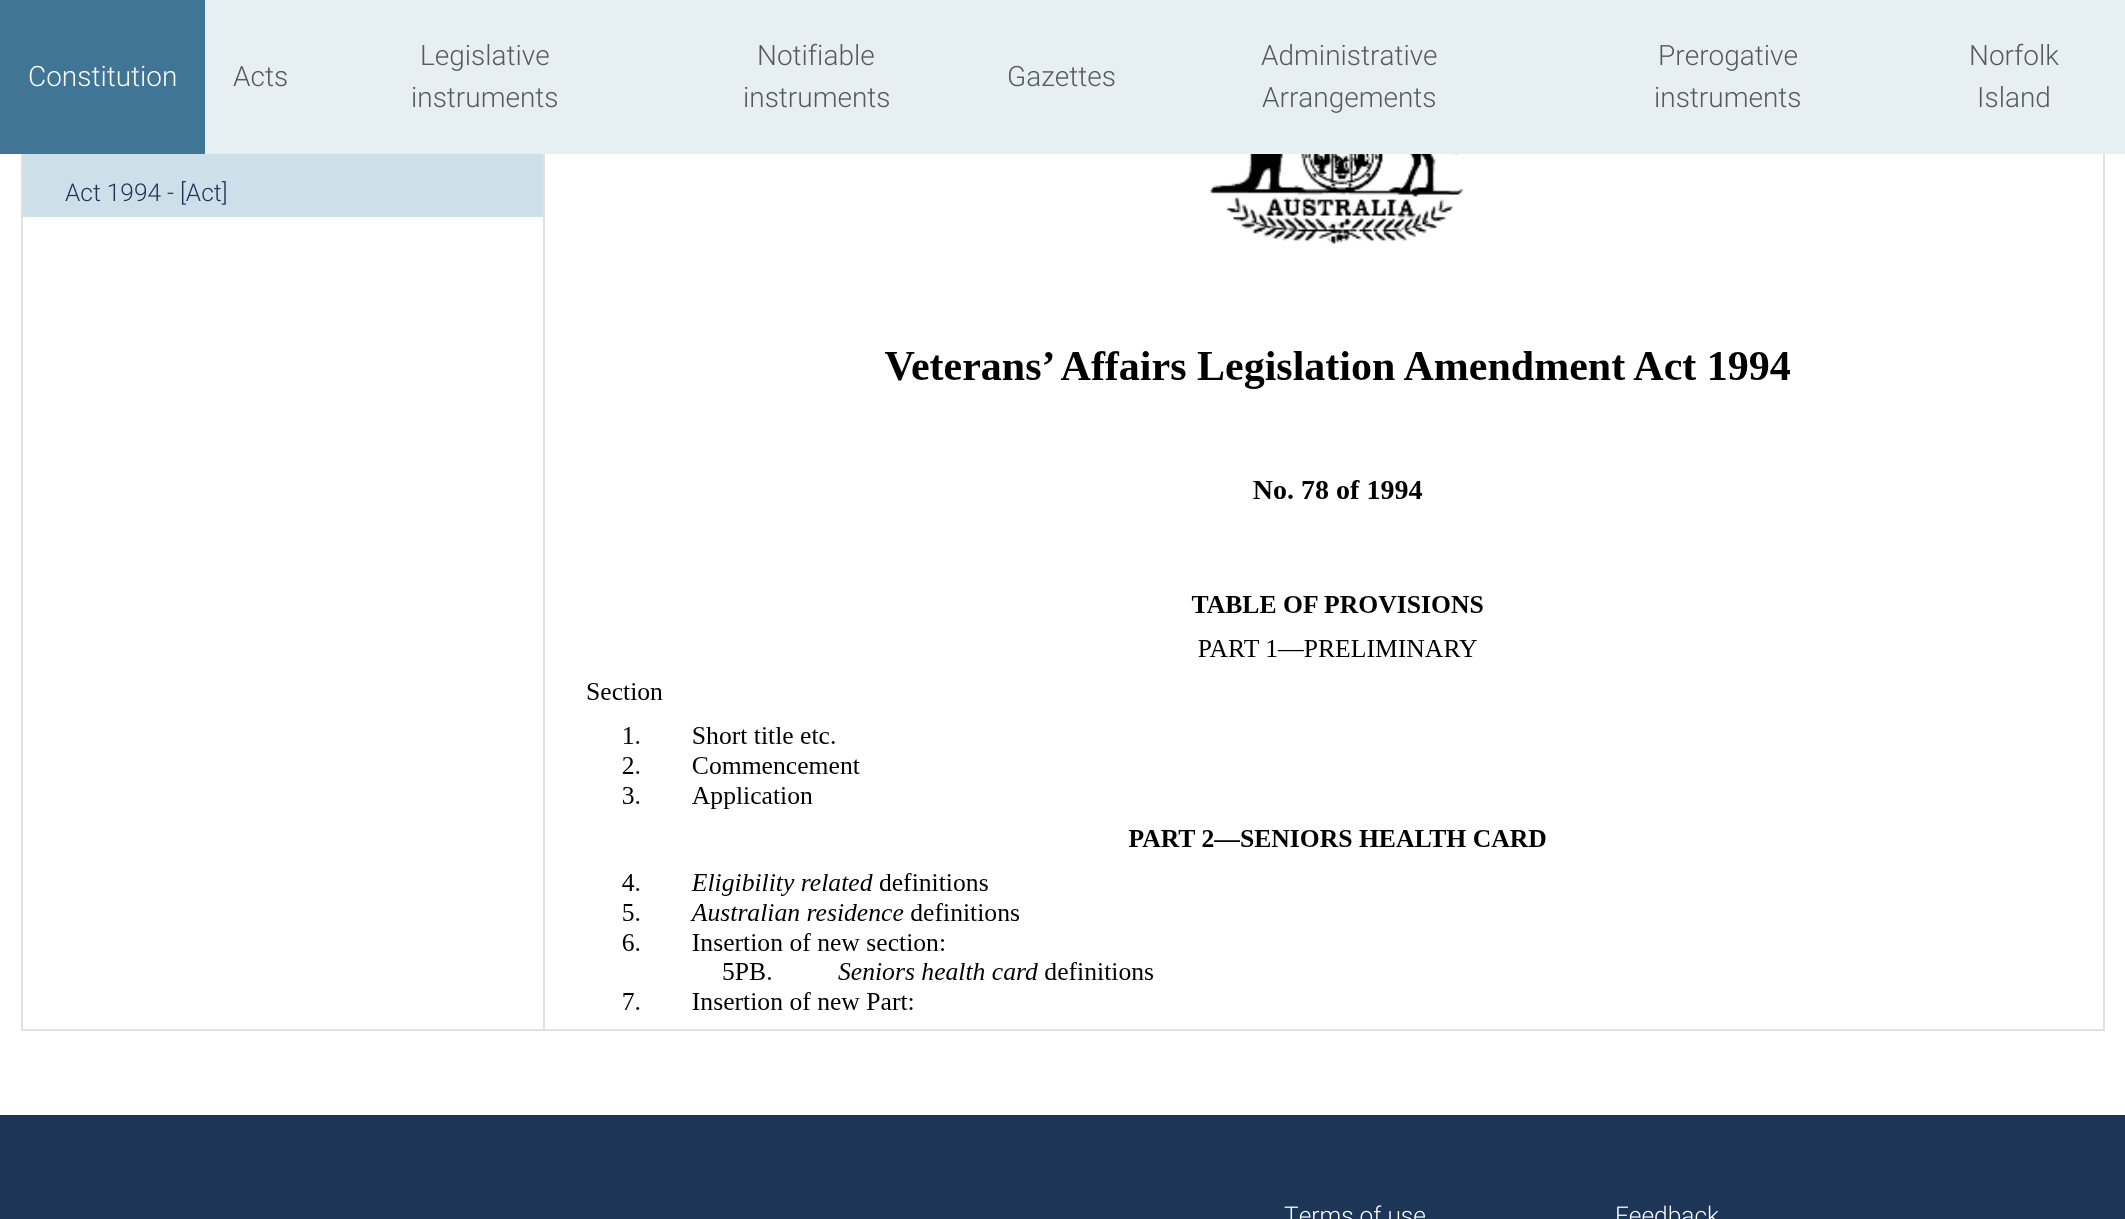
import math
import cairo


def paste(ctx, path, x, y, w, h):
	ctx.save()
	ctx.set_source_surface(cairo.ImageSurface.create_from_png(path), x, y)
	ctx.rectangle(x, y, w, h)
	ctx.fill()
	ctx.restore()

def draw(ctx):
	ctx.set_source_rgb(1, 1, 1)
	ctx.paint()
	ctx.rectangle(544, 36, 1560, 994)
	ctx.set_source_rgb(0.882, 0.882, 0.886)
	ctx.stroke()
	ctx.set_source_rgb(0.902, 0.937, 0.957)
	ctx.rectangle(205, 0, 1920, 154)
	ctx.fill()
	ctx.set_source_rgb(0.255, 0.459, 0.584)
	ctx.rectangle(0, 0, 205, 154)
	ctx.fill()
	ctx.select_font_face('Roboto Light')
	ctx.set_font_size(28)
	ctx.set_source_rgb(1, 1, 1)
	ctx.move_to(28, 86)
	ctx.show_text('Constitution')
	ctx.set_source_rgb(0.337, 0.349, 0.369)
	for x, y, s in [
		(233, 86, 'Acts'),
		(420, 65, 'Legislative'),
		(411, 107, 'instruments'),
		(757, 65, 'Notifiable'),
		(743, 107, 'instruments'),
		(1007, 86, 'Gazettes'),
		(1261, 65, 'Administrative'),
		(1262, 107, 'Arrangements'),
		(1658, 65, 'Prerogative'),
		(1654, 107, 'instruments'),
		(1969, 65, 'Norfolk'),
		(1977, 107, 'Island'),
	]:
		ctx.move_to(x, y)
		ctx.show_text(s)
	ctx.set_source_rgb(0.882, 0.882, 0.886)
	ctx.rectangle(21, 1029, 522, 2)
	ctx.rectangle(21, 154, 2, 877)
	ctx.fill()
	ctx.set_source_rgb(0.804, 0.875, 0.914)
	ctx.rectangle(23, 154, 520, 63)
	ctx.fill()
	ctx.set_font_size(24.5)
	ctx.set_source_rgb(0.114, 0.208, 0.341)
	ctx.move_to(65, 201)
	ctx.show_text('Act 1994 - [Act]')
	paste(ctx, 'media/1.png', 587, 154, 1203, 856)
	ctx.rectangle(0, 1115, 2125, 104)
	ctx.fill()
	ctx.set_source_rgb(1, 1, 1)
	ctx.move_to(1284, 1224)
	ctx.show_text('Terms of use')
	ctx.move_to(1615, 1224)
	ctx.show_text('Feedback')


surface = cairo.ImageSurface(cairo.FORMAT_RGB24, 2125, 1219)
ctx = cairo.Context(surface)
options = cairo.FontOptions()
options.set_hint_metrics(cairo.HINT_METRICS_OFF)
options.set_hint_style(cairo.HINT_STYLE_NONE)
ctx.set_font_options(options)
ctx.set_miter_limit(4)
draw(ctx)
surface.write_to_png('image.png')
